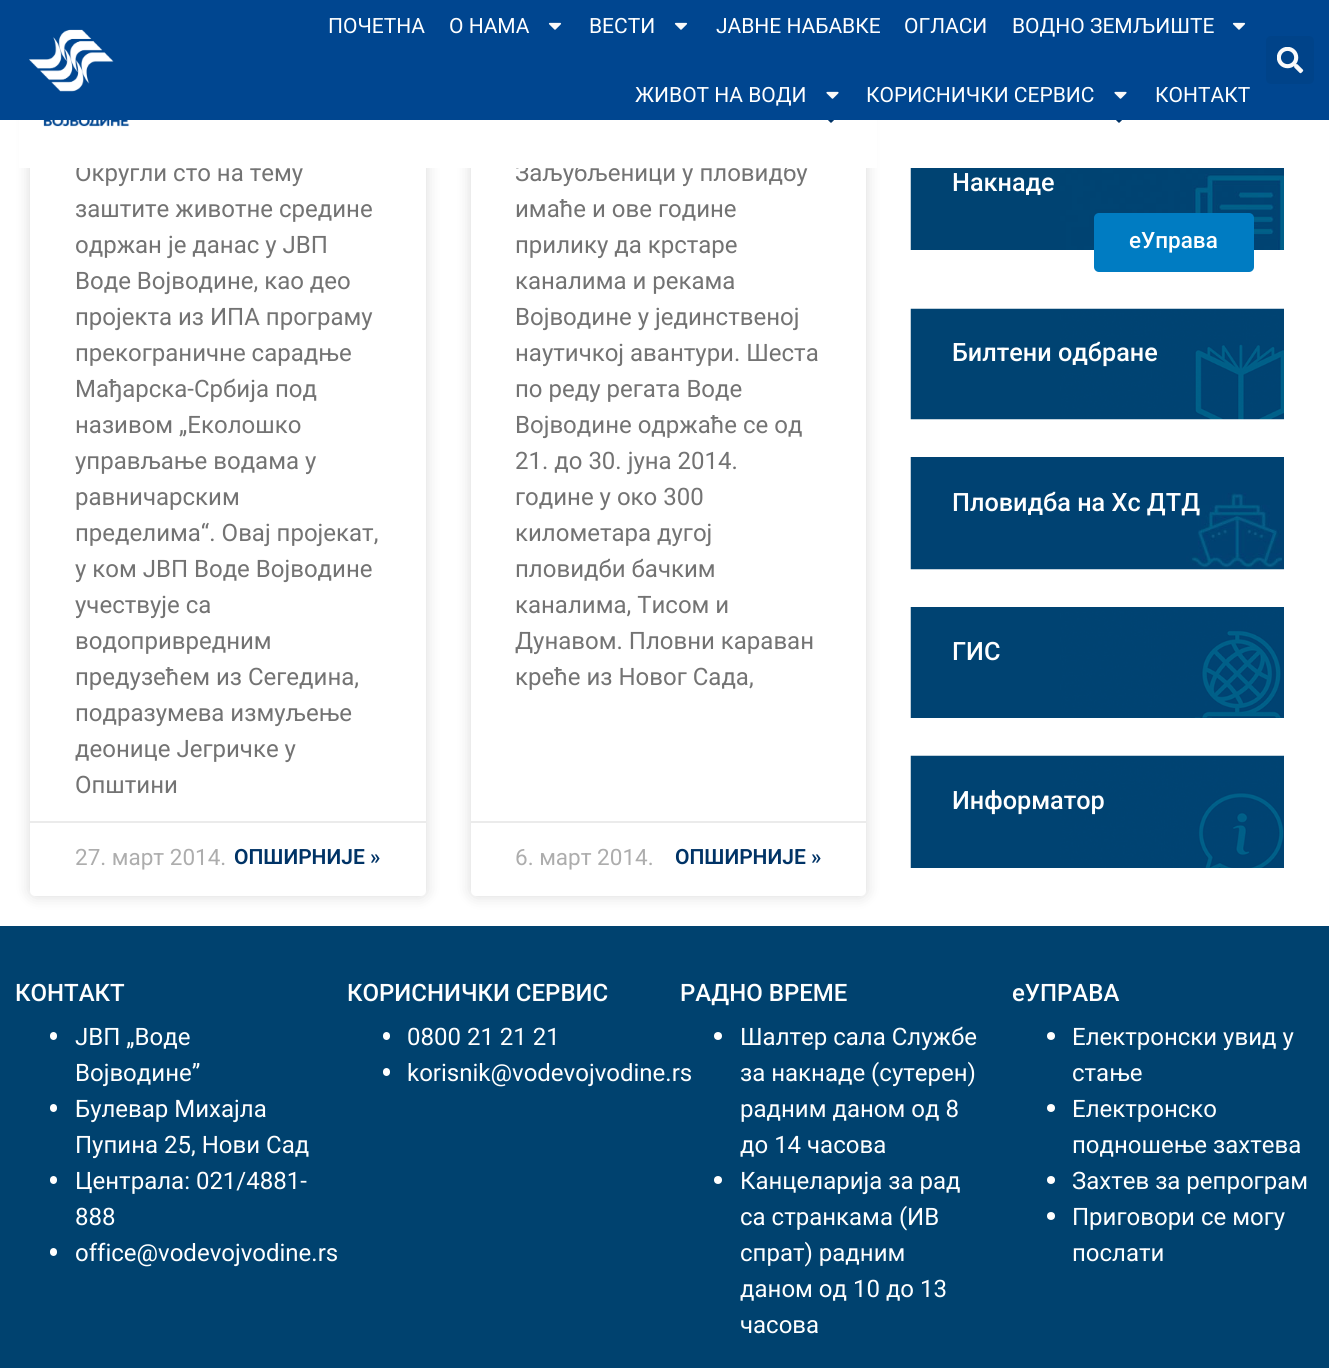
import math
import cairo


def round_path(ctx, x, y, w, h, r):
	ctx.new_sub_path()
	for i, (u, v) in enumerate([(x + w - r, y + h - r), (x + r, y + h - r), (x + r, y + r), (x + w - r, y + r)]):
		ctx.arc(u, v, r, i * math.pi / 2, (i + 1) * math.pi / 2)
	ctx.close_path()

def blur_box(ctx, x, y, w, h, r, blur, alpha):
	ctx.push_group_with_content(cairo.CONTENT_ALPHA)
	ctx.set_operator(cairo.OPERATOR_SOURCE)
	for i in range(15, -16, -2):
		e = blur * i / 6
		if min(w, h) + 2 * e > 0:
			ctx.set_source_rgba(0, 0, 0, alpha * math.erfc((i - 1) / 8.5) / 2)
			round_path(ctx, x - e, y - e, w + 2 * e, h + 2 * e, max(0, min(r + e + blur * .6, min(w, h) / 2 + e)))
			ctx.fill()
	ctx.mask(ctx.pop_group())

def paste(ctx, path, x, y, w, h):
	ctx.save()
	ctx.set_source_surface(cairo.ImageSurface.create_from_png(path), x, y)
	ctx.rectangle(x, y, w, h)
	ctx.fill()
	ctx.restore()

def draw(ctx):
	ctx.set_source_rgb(1, 1, 1)
	ctx.paint()
	ctx.set_source_rgb(0, 0, 0)
	blur_box(ctx, 30, -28, 396, 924, 5, 7.5, 0.15)
	ctx.set_source_rgb(1, 1, 1)
	round_path(ctx, 30, -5, 396, 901, 5)
	ctx.fill()
	ctx.set_source_rgb(0, 0, 0)
	blur_box(ctx, 471, -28, 395, 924, 5, 7.5, 0.15)
	ctx.set_source_rgb(1, 1, 1)
	round_path(ctx, 471, -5, 395, 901, 5)
	ctx.fill()
	ctx.set_source_rgb(0, 0.275, 0.565)
	ctx.rectangle(0, 0, 1329, 120)
	ctx.fill()
	paste(ctx, 'media/1.png', 29, 29, 85, 63)
	ctx.select_font_face('Roboto')
	ctx.set_font_size(21)
	ctx.set_source_rgb(1, 1, 1)
	ctx.move_to(328, 33)
	ctx.show_text('ПОЧЕТНА')
	ctx.move_to(449, 33)
	ctx.show_text('О НАМА')
	paste(ctx, 'media/2.png', 548, 22, 14, 8)
	ctx.move_to(589, 33)
	ctx.show_text('ВЕСТИ')
	paste(ctx, 'media/2.png', 674, 22, 14, 8)
	for x, y, s in [
		(716, 33, 'ЈАВНЕ НАБАВКЕ'),
		(904, 33, 'ОГЛАСИ'),
		(1012, 33, 'ВОДНО ЗЕМЉИШТЕ'),
	]:
		ctx.move_to(x, y)
		ctx.show_text(s)
	paste(ctx, 'media/2.png', 1232, 22, 14, 8)
	ctx.move_to(635, 102)
	ctx.show_text('ЖИВОТ НА ВОДИ')
	paste(ctx, 'media/3.png', 826, 91, 13, 8)
	ctx.move_to(866, 102)
	ctx.show_text('КОРИСНИЧКИ СЕРВИС')
	paste(ctx, 'media/3.png', 1114, 91, 13, 8)
	ctx.move_to(1155, 102)
	ctx.show_text('КОНТАКТ')
	ctx.set_source_rgb(0, 0.263, 0.537)
	round_path(ctx, 1266, 36, 48, 48, 5)
	ctx.fill()
	paste(ctx, 'media/4.png', 1277, 47, 27, 27)
	ctx.set_font_size(24)
	ctx.set_source_rgb(0.451, 0.451, 0.451)
	ctx.move_to(75, 181)
	ctx.show_text('Округли сто на тему')
	ctx.move_to(515, 181)
	ctx.show_text('Заљубљеници у пловидбу')
	ctx.set_source_rgb(1, 1, 1)
	ctx.rectangle(19, 120, 858, 48)
	ctx.fill()
	paste(ctx, 'media/5.png', 43, 120, 87, 7)
	paste(ctx, 'media/6.png', 828, 120, 6, 3)
	paste(ctx, 'media/6.png', 1116, 120, 6, 3)
	ctx.set_source_rgb(0.451, 0.451, 0.451)
	for x, y, s in [
		(75, 217, 'заштите животне средине'),
		(75, 253, 'одржан је данас у ЈВП'),
		(75, 289, 'Воде Војводине, као део'),
		(75, 325, 'пројекта из ИПА програму'),
		(75, 361, 'прекограничне сарадње'),
		(75, 397, 'Мађарска-Србија под'),
		(75, 433, 'називом „Еколошко'),
		(75, 469, 'управљање водама у'),
		(75, 505, 'равничарским'),
		(75, 541, 'пределима“. Овај пројекат,'),
		(75, 577, 'у ком ЈВП Воде Војводине'),
		(75, 613, 'учествује са'),
		(75, 649, 'водопривредним'),
		(75, 685, 'предузећем из Сегедина,'),
		(75, 721, 'подразумева измуљење'),
		(75, 757, 'деонице Јегричке у'),
		(75, 793, 'Општини'),
	]:
		ctx.move_to(x, y)
		ctx.show_text(s)
	ctx.select_font_face('Roboto SemiBold')
	ctx.set_font_size(21)
	ctx.set_source_rgb(0, 0.2, 0.4)
	ctx.move_to(234, 864)
	ctx.show_text('ОПШИРНИЈЕ »')
	ctx.set_source_rgb(0.918, 0.918, 0.918)
	ctx.rectangle(30, 821, 396, 2)
	ctx.fill()
	ctx.select_font_face('Roboto')
	ctx.set_font_size(22.5)
	ctx.set_source_rgb(0.678, 0.678, 0.678)
	ctx.move_to(75, 865)
	ctx.show_text('27. март 2014.')
	ctx.set_font_size(24)
	ctx.set_source_rgb(0.451, 0.451, 0.451)
	for x, y, s in [
		(515, 217, 'имаће и ове године'),
		(515, 253, 'прилику да крстаре'),
		(515, 289, 'каналима и рекама'),
		(515, 325, 'Војводине у јединственој'),
		(515, 361, 'наутичкој авантури. Шеста'),
		(515, 397, 'по реду регата Воде'),
		(515, 433, 'Војводине одржаће се од'),
		(515, 469, '21. до 30. јуна 2014.'),
		(515, 505, 'године у око 300'),
		(515, 541, 'километара дугој'),
		(515, 577, 'пловидби бачким'),
		(515, 613, 'каналима, Тисом и'),
		(515, 649, 'Дунавом. Пловни караван'),
		(515, 685, 'креће из Новог Сада,'),
	]:
		ctx.move_to(x, y)
		ctx.show_text(s)
	ctx.select_font_face('Roboto SemiBold')
	ctx.set_font_size(21)
	ctx.set_source_rgb(0, 0.2, 0.4)
	ctx.move_to(675, 864)
	ctx.show_text('ОПШИРНИЈЕ »')
	ctx.set_source_rgb(0.918, 0.918, 0.918)
	ctx.rectangle(471, 821, 395, 2)
	ctx.fill()
	ctx.select_font_face('Roboto')
	ctx.set_font_size(22.5)
	ctx.set_source_rgb(0.678, 0.678, 0.678)
	ctx.move_to(515, 865)
	ctx.show_text('6. март 2014.')
	paste(ctx, 'media/7.png', 910, 168, 374, 82)
	ctx.select_font_face('Roboto Medium')
	ctx.set_font_size(25.25)
	ctx.set_source_rgb(1, 1, 1)
	ctx.move_to(952, 191)
	ctx.show_text('Накнаде')
	ctx.set_source_rgb(0, 0.486, 0.761)
	round_path(ctx, 1094, 213, 160, 59, 5)
	ctx.fill()
	ctx.set_font_size(22.5)
	ctx.set_source_rgb(1, 1, 1)
	ctx.move_to(1129, 248)
	ctx.show_text('еУправа')
	paste(ctx, 'media/8.png', 910, 308, 374, 112)
	ctx.set_font_size(25.25)
	ctx.move_to(952, 361)
	ctx.show_text('Билтени одбране')
	paste(ctx, 'media/9.png', 910, 457, 374, 113)
	ctx.move_to(952, 511)
	ctx.show_text('Пловидба на Хс ДТД')
	paste(ctx, 'media/10.png', 910, 607, 374, 111)
	ctx.move_to(952, 660)
	ctx.show_text('ГИС')
	paste(ctx, 'media/11.png', 910, 755, 374, 113)
	ctx.move_to(952, 809)
	ctx.show_text('Информатор')
	ctx.set_source_rgb(0, 0.259, 0.435)
	ctx.rectangle(0, 926, 1329, 442)
	ctx.fill()
	ctx.set_font_size(24)
	ctx.set_source_rgb(1, 1, 1)
	ctx.move_to(15, 1001)
	ctx.show_text('КОНТАКТ')
	round_path(ctx, 50, 1032, 7, 8, 3.5)
	ctx.fill()
	ctx.select_font_face('Roboto')
	ctx.move_to(75, 1045)
	ctx.show_text('ЈВП „Воде')
	ctx.move_to(75, 1081)
	ctx.show_text('Војводине”')
	round_path(ctx, 50, 1104, 7, 8, 3.5)
	ctx.fill()
	ctx.move_to(75, 1117)
	ctx.show_text('Булевар Михајла')
	ctx.move_to(75, 1153)
	ctx.show_text('Пупина 25, Нови Сад')
	round_path(ctx, 50, 1176, 7, 8, 3.5)
	ctx.fill()
	ctx.move_to(75, 1189)
	ctx.show_text('Централа: 021/4881-')
	ctx.move_to(75, 1225)
	ctx.show_text('888')
	round_path(ctx, 50, 1248, 7, 8, 3.5)
	ctx.fill()
	ctx.move_to(75, 1261)
	ctx.show_text('office@vodevojvodine.rs')
	ctx.select_font_face('Roboto Medium')
	ctx.move_to(347, 1001)
	ctx.show_text('КОРИСНИЧКИ СЕРВИС')
	round_path(ctx, 383, 1032, 7, 8, 3.5)
	ctx.fill()
	ctx.select_font_face('Roboto')
	ctx.move_to(407, 1045)
	ctx.show_text('0800 21 21 21')
	round_path(ctx, 383, 1068, 7, 8, 3.5)
	ctx.fill()
	ctx.move_to(407, 1081)
	ctx.show_text('korisnik@vodevojvodine.rs')
	ctx.select_font_face('Roboto Medium')
	ctx.move_to(680, 1001)
	ctx.show_text('РАДНО ВРЕМЕ')
	ctx.new_path()
	ctx.arc(718, 1036, 4, 0, 2 * math.pi)
	ctx.fill()
	ctx.select_font_face('Roboto')
	for x, y, s in [
		(740, 1045, 'Шалтер сала Службе'),
		(740, 1081, 'за накнаде (сутерен)'),
		(740, 1117, 'радним даном од 8'),
		(740, 1153, 'до 14 часова'),
	]:
		ctx.move_to(x, y)
		ctx.show_text(s)
	ctx.new_path()
	ctx.arc(718, 1180, 4, 0, 2 * math.pi)
	ctx.fill()
	for x, y, s in [
		(740, 1189, 'Канцеларија за рад'),
		(740, 1225, 'са странкама (ИВ'),
		(740, 1261, 'спрат) радним'),
		(740, 1297, 'даном од 10 до 13'),
		(740, 1333, 'часова'),
	]:
		ctx.move_to(x, y)
		ctx.show_text(s)
	ctx.select_font_face('Roboto Medium')
	ctx.move_to(1012, 1001)
	ctx.show_text('еУПРАВА')
	ctx.new_path()
	ctx.arc(1051, 1036, 4, 0, 2 * math.pi)
	ctx.fill()
	ctx.select_font_face('Roboto')
	ctx.move_to(1072, 1045)
	ctx.show_text('Електронски увид у')
	ctx.move_to(1072, 1081)
	ctx.show_text('стање')
	ctx.new_path()
	ctx.arc(1051, 1108, 4, 0, 2 * math.pi)
	ctx.fill()
	ctx.move_to(1072, 1117)
	ctx.show_text('Електронско')
	ctx.move_to(1072, 1153)
	ctx.show_text('подношење захтева')
	ctx.new_path()
	ctx.arc(1051, 1180, 4, 0, 2 * math.pi)
	ctx.fill()
	ctx.move_to(1072, 1189)
	ctx.show_text('Захтев за репрограм')
	ctx.new_path()
	ctx.arc(1051, 1216, 4, 0, 2 * math.pi)
	ctx.fill()
	ctx.move_to(1072, 1225)
	ctx.show_text('Приговори се могу')
	ctx.move_to(1072, 1261)
	ctx.show_text('послати')


surface = cairo.ImageSurface(cairo.FORMAT_RGB24, 1329, 1368)
ctx = cairo.Context(surface)
options = cairo.FontOptions()
options.set_hint_metrics(cairo.HINT_METRICS_OFF)
options.set_hint_style(cairo.HINT_STYLE_NONE)
ctx.set_font_options(options)
ctx.set_miter_limit(4)
draw(ctx)
surface.write_to_png('image.png')
